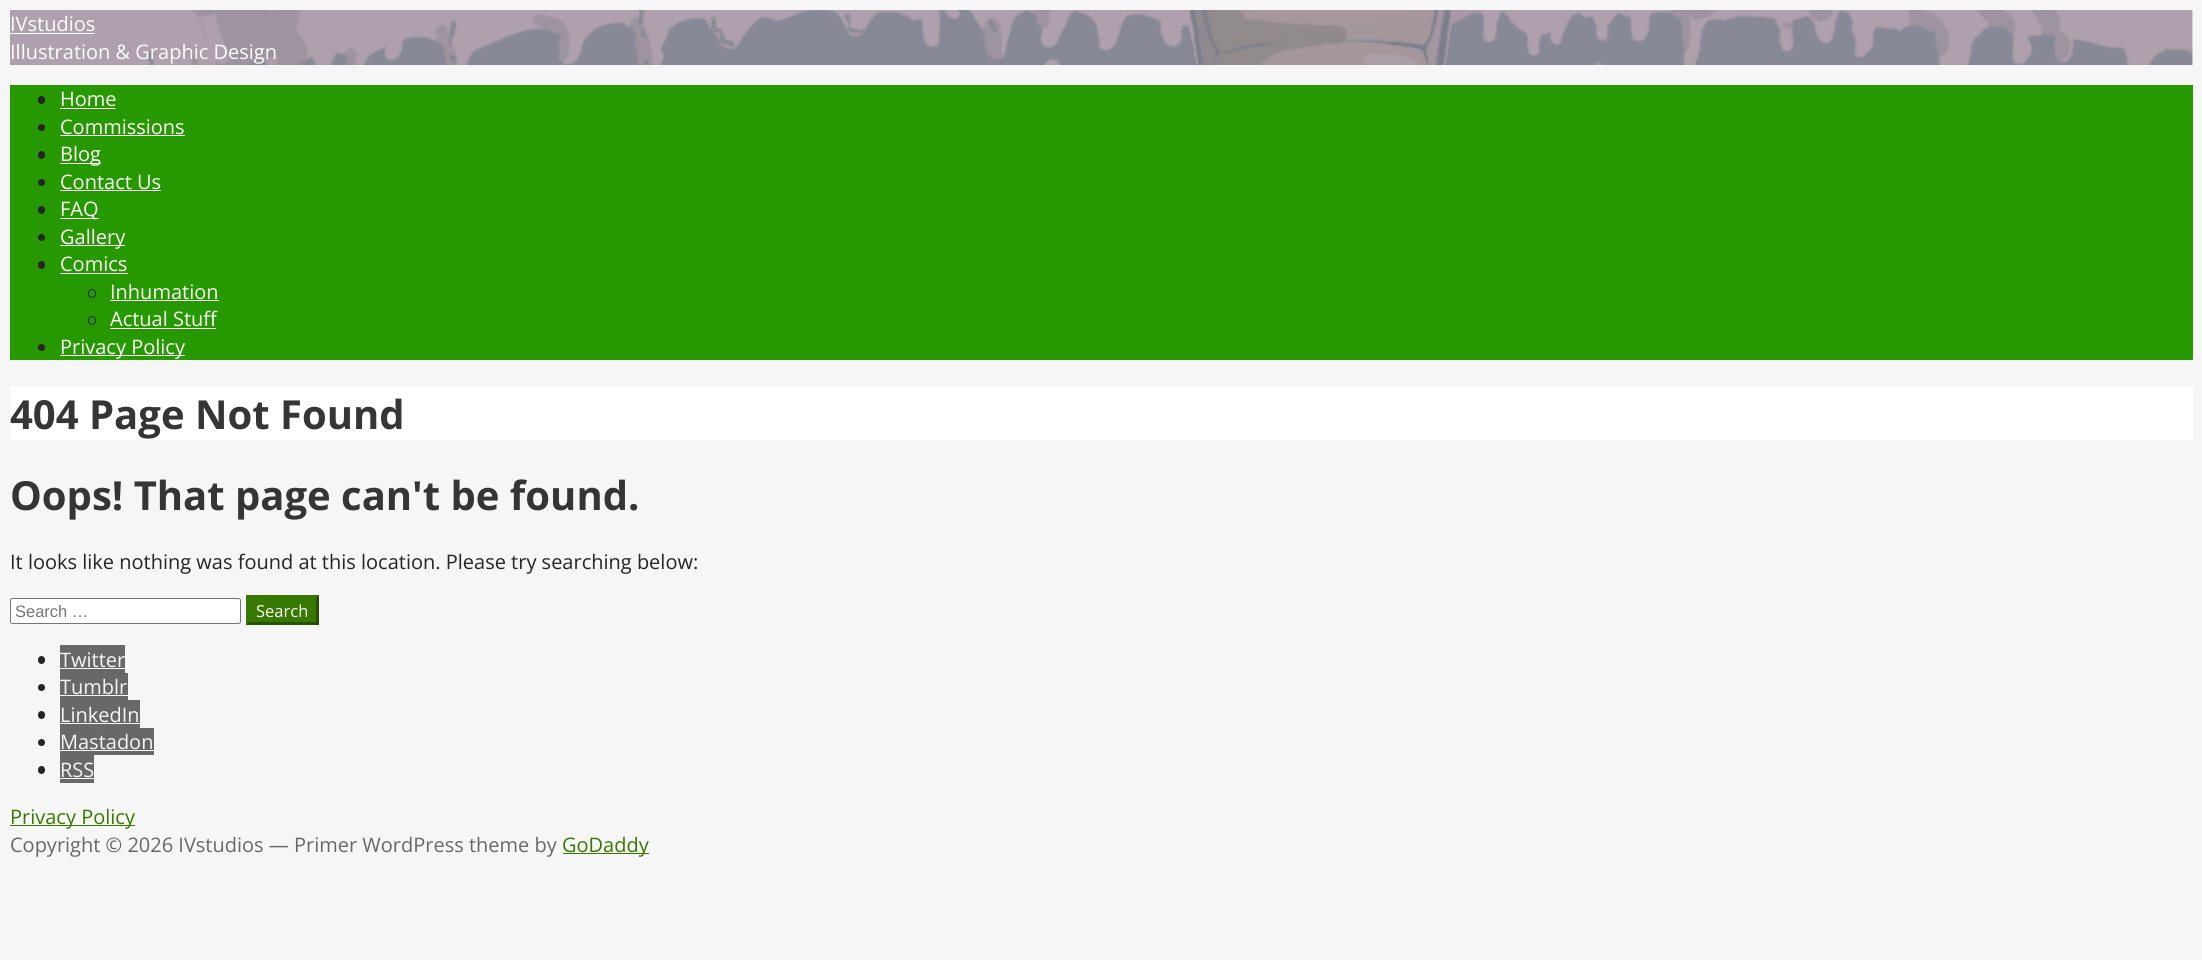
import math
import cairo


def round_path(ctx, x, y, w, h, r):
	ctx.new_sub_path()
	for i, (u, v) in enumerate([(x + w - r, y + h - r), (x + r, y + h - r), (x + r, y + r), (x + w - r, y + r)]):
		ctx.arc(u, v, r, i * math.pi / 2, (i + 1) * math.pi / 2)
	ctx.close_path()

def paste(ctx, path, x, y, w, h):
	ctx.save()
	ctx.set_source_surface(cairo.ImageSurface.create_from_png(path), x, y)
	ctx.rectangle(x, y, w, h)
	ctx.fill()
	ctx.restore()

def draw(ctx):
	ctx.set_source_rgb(0.961, 0.961, 0.961)
	ctx.paint()
	ctx.set_source_rgb(1, 1, 1)
	ctx.rectangle(2192, 10, 1, 55)
	ctx.fill()
	paste(ctx, 'media/1.png', 10, 10, 2183, 55)
	ctx.select_font_face('Open Sans')
	ctx.set_font_size(20)
	ctx.move_to(10, 31)
	ctx.show_text('IVstudios')
	ctx.rectangle(10, 33, 85, 1)
	ctx.fill()
	ctx.move_to(10, 59)
	ctx.show_text('Illustration & Graphic Design')
	ctx.set_source_rgb(0.149, 0.6, 0)
	ctx.rectangle(10, 85, 2183, 275)
	ctx.fill()
	ctx.set_source_rgb(0.145, 0.145, 0.145)
	round_path(ctx, 38, 96, 7, 8, 3.5)
	ctx.fill()
	ctx.set_source_rgb(1, 1, 1)
	ctx.move_to(60, 106)
	ctx.show_text('Home')
	ctx.rectangle(60, 108, 56, 1)
	ctx.fill()
	ctx.set_source_rgb(0.145, 0.145, 0.145)
	ctx.arc(41.5, 127.5, 3.5, 0, 2 * math.pi)
	ctx.fill()
	ctx.set_source_rgb(1, 1, 1)
	ctx.move_to(60, 134)
	ctx.show_text('Commissions')
	ctx.rectangle(60, 135, 125, 1)
	ctx.fill()
	ctx.set_source_rgb(0.145, 0.145, 0.145)
	round_path(ctx, 38, 151, 7, 8, 3.5)
	ctx.fill()
	ctx.set_source_rgb(1, 1, 1)
	ctx.rectangle(60, 163, 41, 1)
	ctx.fill()
	ctx.move_to(60, 161)
	ctx.show_text('Blog')
	ctx.set_source_rgb(0.145, 0.145, 0.145)
	ctx.new_path()
	ctx.arc(41.5, 182.5, 3.5, 0, 2 * math.pi)
	ctx.fill()
	ctx.set_source_rgb(1, 1, 1)
	ctx.move_to(60, 189)
	ctx.show_text('Contact Us')
	ctx.rectangle(60, 190, 101, 1)
	ctx.fill()
	ctx.set_source_rgb(0.145, 0.145, 0.145)
	round_path(ctx, 38, 206, 7, 8, 3.5)
	ctx.fill()
	ctx.set_source_rgb(1, 1, 1)
	ctx.rectangle(60, 218, 39, 1)
	ctx.fill()
	ctx.move_to(60, 216)
	ctx.show_text('FAQ')
	ctx.set_source_rgb(0.145, 0.145, 0.145)
	ctx.new_path()
	ctx.arc(41.5, 237.5, 3.5, 0, 2 * math.pi)
	ctx.fill()
	ctx.set_source_rgb(1, 1, 1)
	ctx.rectangle(60, 245, 65, 1)
	ctx.fill()
	ctx.move_to(60, 244)
	ctx.show_text('Gallery')
	ctx.set_source_rgb(0.145, 0.145, 0.145)
	round_path(ctx, 38, 261, 7, 8, 3.5)
	ctx.fill()
	ctx.set_source_rgb(1, 1, 1)
	ctx.move_to(60, 271)
	ctx.show_text('Comics')
	ctx.rectangle(60, 273, 68, 1)
	ctx.fill()
	round_path(ctx, 88.5, 289.5, 7, 8, 3.5)
	ctx.set_source_rgb(0.145, 0.145, 0.145)
	ctx.set_line_width(1)
	ctx.stroke()
	ctx.set_source_rgb(1, 1, 1)
	ctx.move_to(110, 299)
	ctx.show_text('Inhumation')
	ctx.rectangle(110, 300, 109, 1)
	ctx.fill()
	round_path(ctx, 88.5, 316.5, 7, 8, 3.5)
	ctx.set_source_rgb(0.145, 0.145, 0.145)
	ctx.stroke()
	ctx.set_source_rgb(1, 1, 1)
	ctx.move_to(110, 326)
	ctx.show_text('Actual Stuff')
	ctx.rectangle(110, 328, 106, 1)
	ctx.fill()
	ctx.set_source_rgb(0.145, 0.145, 0.145)
	ctx.arc(41.5, 347.5, 3.5, 0, 2 * math.pi)
	ctx.fill()
	ctx.set_source_rgb(1, 1, 1)
	ctx.rectangle(60, 355, 125, 1)
	ctx.fill()
	ctx.move_to(60, 354)
	ctx.show_text('Privacy Policy')
	ctx.rectangle(10, 386, 2183, 54)
	ctx.fill()
	ctx.select_font_face('Open Sans', cairo.FONT_SLANT_NORMAL, cairo.FONT_WEIGHT_BOLD)
	ctx.set_font_size(40)
	ctx.set_source_rgb(0.208, 0.208, 0.208)
	ctx.move_to(10, 429)
	ctx.show_text('404 Page Not Found')
	ctx.move_to(10, 510)
	ctx.show_text('Oops! That page can\'t be found.')
	ctx.select_font_face('Open Sans')
	ctx.set_font_size(20)
	ctx.set_source_rgb(0.145, 0.145, 0.145)
	ctx.move_to(10, 569)
	ctx.show_text('It looks like nothing was found at this location. Please try searching below:')
	ctx.set_source_rgb(1, 1, 1)
	round_path(ctx, 10.5, 598.5, 230, 25, 2)
	ctx.fill_preserve()
	ctx.set_source_rgb(0.463, 0.463, 0.463)
	ctx.stroke()
	ctx.select_font_face('Liberation Sans')
	ctx.set_font_size(16.5)
	ctx.set_source_rgb(0.459, 0.459, 0.459)
	ctx.move_to(15, 617)
	ctx.show_text('Search …')
	ctx.set_source_rgb(0.216, 0.475, 0)
	ctx.rectangle(246, 595, 73, 30)
	ctx.fill()
	ctx.set_source_rgb(0.145, 0.318, 0)
	ctx.new_path()
	ctx.move_to(319, 595)
	ctx.line_to(319, 625)
	ctx.line_to(316, 622.5)
	ctx.line_to(316, 597.5)
	ctx.close_path()
	ctx.fill()
	ctx.new_path()
	ctx.move_to(319, 625)
	ctx.line_to(246, 625)
	ctx.line_to(249, 622)
	ctx.line_to(316, 622)
	ctx.close_path()
	ctx.fill()
	ctx.set_source_rgb(0.216, 0.475, 0)
	ctx.new_path()
	ctx.move_to(246, 625)
	ctx.line_to(246, 595)
	ctx.line_to(249, 597.5)
	ctx.line_to(249, 622.5)
	ctx.close_path()
	ctx.fill()
	ctx.select_font_face('Open Sans')
	ctx.set_source_rgb(1, 1, 1)
	ctx.move_to(256, 617)
	ctx.show_text('Search')
	ctx.set_source_rgb(0.145, 0.145, 0.145)
	round_path(ctx, 38, 656, 7, 8, 3.5)
	ctx.fill()
	ctx.set_source_rgb(0.408, 0.408, 0.408)
	ctx.rectangle(60, 645, 65, 28)
	ctx.fill()
	ctx.set_font_size(20)
	ctx.set_source_rgb(0.961, 0.961, 0.961)
	ctx.move_to(60, 667)
	ctx.show_text('Twitter')
	ctx.rectangle(60, 668, 65, 1)
	ctx.fill()
	ctx.set_source_rgb(0.145, 0.145, 0.145)
	ctx.arc(41.5, 687.5, 3.5, 0, 2 * math.pi)
	ctx.fill()
	ctx.set_source_rgb(0.408, 0.408, 0.408)
	ctx.rectangle(60, 673, 68, 27)
	ctx.fill()
	ctx.set_source_rgb(0.961, 0.961, 0.961)
	ctx.move_to(60, 694)
	ctx.show_text('Tumblr')
	ctx.rectangle(60, 695, 68, 1)
	ctx.fill()
	ctx.set_source_rgb(0.145, 0.145, 0.145)
	round_path(ctx, 38, 711, 7, 8, 3.5)
	ctx.fill()
	ctx.set_source_rgb(0.408, 0.408, 0.408)
	ctx.rectangle(60, 700, 80, 28)
	ctx.fill()
	ctx.set_source_rgb(0.961, 0.961, 0.961)
	ctx.move_to(60, 722)
	ctx.show_text('LinkedIn')
	ctx.rectangle(60, 723, 80, 1)
	ctx.fill()
	ctx.set_source_rgb(0.145, 0.145, 0.145)
	ctx.arc(41.5, 742.5, 3.5, 0, 2 * math.pi)
	ctx.fill()
	ctx.set_source_rgb(0.408, 0.408, 0.408)
	ctx.rectangle(60, 728, 94, 27)
	ctx.fill()
	ctx.set_source_rgb(0.961, 0.961, 0.961)
	ctx.move_to(60, 749)
	ctx.show_text('Mastadon')
	ctx.rectangle(60, 750, 94, 1)
	ctx.fill()
	ctx.set_source_rgb(0.145, 0.145, 0.145)
	round_path(ctx, 38, 766, 7, 8, 3.5)
	ctx.fill()
	ctx.set_source_rgb(0.408, 0.408, 0.408)
	ctx.rectangle(60, 755, 34, 28)
	ctx.fill()
	ctx.set_source_rgb(0.961, 0.961, 0.961)
	ctx.move_to(60, 777)
	ctx.show_text('RSS')
	ctx.rectangle(60, 778, 34, 1)
	ctx.fill()
	ctx.set_source_rgb(0.216, 0.475, 0)
	ctx.rectangle(10, 825, 125, 1)
	ctx.fill()
	ctx.move_to(10, 824)
	ctx.show_text('Privacy Policy')
	ctx.set_source_rgb(0.408, 0.408, 0.408)
	ctx.move_to(10, 852)
	ctx.show_text('Copyright © 2026 IVstudios — Primer WordPress theme by')
	ctx.set_source_rgb(0.216, 0.475, 0)
	ctx.rectangle(563, 853, 86, 1)
	ctx.fill()
	ctx.move_to(562, 852)
	ctx.show_text('GoDaddy')


surface = cairo.ImageSurface(cairo.FORMAT_RGB24, 2202, 960)
ctx = cairo.Context(surface)
options = cairo.FontOptions()
options.set_hint_metrics(cairo.HINT_METRICS_OFF)
options.set_hint_style(cairo.HINT_STYLE_NONE)
ctx.set_font_options(options)
ctx.set_miter_limit(4)
draw(ctx)
surface.write_to_png('image.png')
